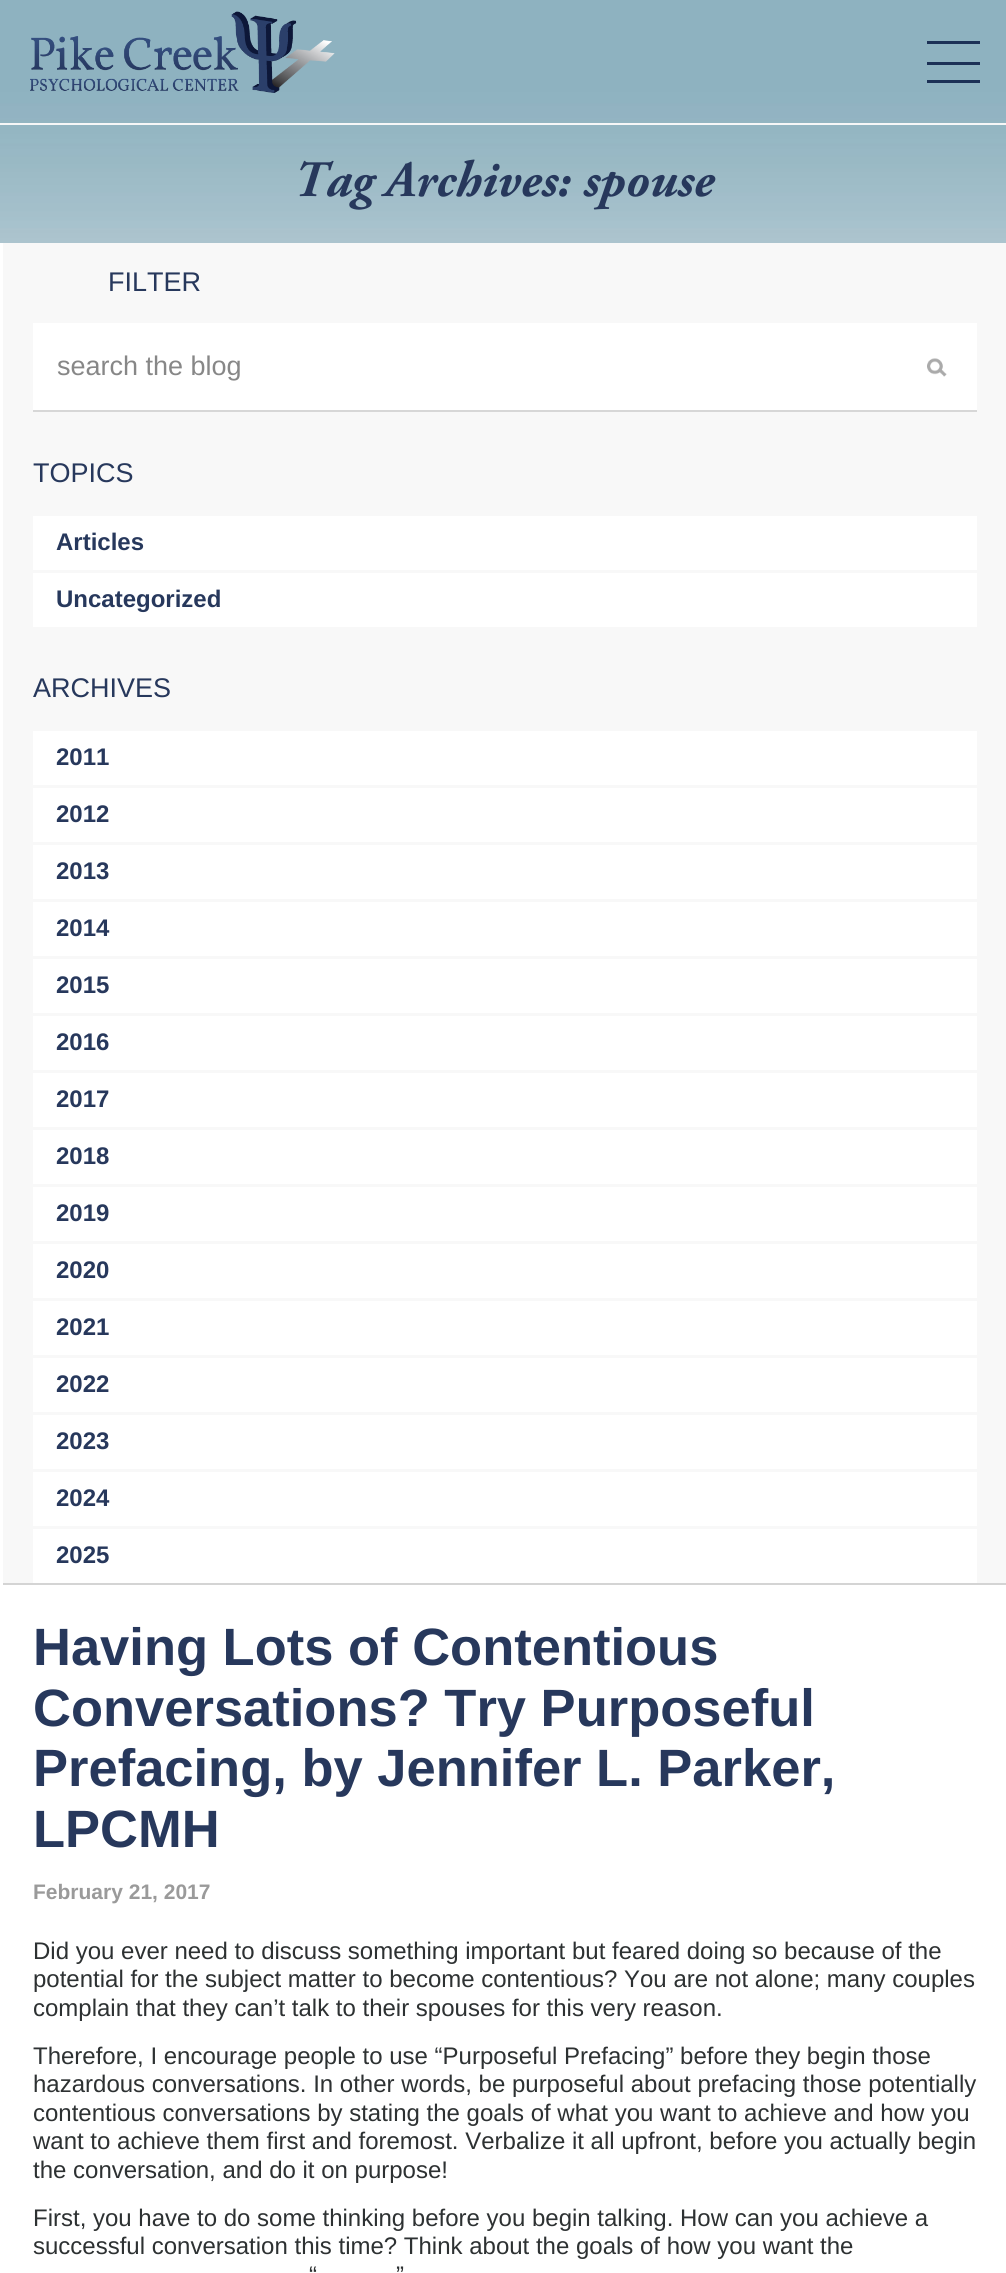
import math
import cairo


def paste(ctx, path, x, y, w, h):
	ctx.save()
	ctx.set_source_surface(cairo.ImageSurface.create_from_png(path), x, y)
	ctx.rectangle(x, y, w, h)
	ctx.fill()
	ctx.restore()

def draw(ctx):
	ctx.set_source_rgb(1, 1, 1)
	ctx.paint()
	paste(ctx, 'media/1.png', 0, 0, 1006, 243)
	ctx.set_source_rgb(0.965, 0.965, 0.965)
	ctx.rectangle(0, 123, 1006, 2)
	ctx.fill()
	paste(ctx, 'media/2.png', 30, 11, 305, 82)
	ctx.set_source_rgb(0.11, 0.192, 0.337)
	ctx.rectangle(927, 62, 53, 3)
	ctx.rectangle(927, 41, 53, 3)
	ctx.rectangle(927, 80, 53, 3)
	ctx.fill()
	ctx.select_font_face('Adobe Garamond', cairo.FONT_SLANT_ITALIC, cairo.FONT_WEIGHT_BOLD)
	ctx.set_font_size(51)
	ctx.set_source_rgb(0.153, 0.22, 0.361)
	ctx.move_to(293, 196)
	ctx.show_text('Tag Archives: spouse')
	ctx.set_source_rgb(0.969, 0.969, 0.969)
	ctx.rectangle(3, 243, 1003, 1340)
	ctx.fill()
	ctx.set_source_rgb(0.831, 0.831, 0.831)
	ctx.rectangle(3, 1583, 1003, 2)
	ctx.fill()
	ctx.select_font_face('Liberation Sans')
	ctx.set_font_size(27)
	ctx.set_source_rgb(0.153, 0.22, 0.361)
	ctx.move_to(108, 291)
	ctx.show_text('FILTER')
	ctx.set_source_rgb(0.843, 0.843, 0.843)
	ctx.rectangle(33, 410, 944, 2)
	ctx.fill()
	ctx.set_source_rgb(1, 1, 1)
	ctx.rectangle(33, 323, 944, 87)
	ctx.fill()
	ctx.set_source_rgb(0.529, 0.529, 0.529)
	ctx.move_to(57, 375)
	ctx.show_text('search the blog')
	paste(ctx, 'media/3.png', 927, 358, 20, 19)
	ctx.set_source_rgb(0.153, 0.22, 0.361)
	ctx.move_to(33, 482)
	ctx.show_text('TOPICS')
	ctx.set_source_rgb(1, 1, 1)
	ctx.rectangle(33, 516, 944, 54)
	ctx.fill()
	ctx.select_font_face('Liberation Sans', cairo.FONT_SLANT_NORMAL, cairo.FONT_WEIGHT_BOLD)
	ctx.set_font_size(24)
	ctx.set_source_rgb(0.153, 0.22, 0.361)
	ctx.move_to(56, 550)
	ctx.show_text('Articles')
	ctx.set_source_rgb(1, 1, 1)
	ctx.rectangle(33, 573, 944, 54)
	ctx.fill()
	ctx.set_source_rgb(0.153, 0.22, 0.361)
	ctx.move_to(56, 607)
	ctx.show_text('Uncategorized')
	ctx.select_font_face('Liberation Sans')
	ctx.set_font_size(27)
	ctx.move_to(33, 697)
	ctx.show_text('ARCHIVES')
	ctx.set_source_rgb(1, 1, 1)
	ctx.rectangle(33, 731, 944, 54)
	ctx.fill()
	ctx.select_font_face('Liberation Sans', cairo.FONT_SLANT_NORMAL, cairo.FONT_WEIGHT_BOLD)
	ctx.set_font_size(24)
	ctx.set_source_rgb(0.153, 0.22, 0.361)
	ctx.move_to(56, 765)
	ctx.show_text('2011')
	ctx.set_source_rgb(1, 1, 1)
	ctx.rectangle(33, 788, 944, 54)
	ctx.fill()
	ctx.set_source_rgb(0.153, 0.22, 0.361)
	ctx.move_to(56, 822)
	ctx.show_text('2012')
	ctx.set_source_rgb(1, 1, 1)
	ctx.rectangle(33, 845, 944, 54)
	ctx.fill()
	ctx.set_source_rgb(0.153, 0.22, 0.361)
	ctx.move_to(56, 879)
	ctx.show_text('2013')
	ctx.set_source_rgb(1, 1, 1)
	ctx.rectangle(33, 902, 944, 54)
	ctx.fill()
	ctx.set_source_rgb(0.153, 0.22, 0.361)
	ctx.move_to(56, 936)
	ctx.show_text('2014')
	ctx.set_source_rgb(1, 1, 1)
	ctx.rectangle(33, 959, 944, 54)
	ctx.fill()
	ctx.set_source_rgb(0.153, 0.22, 0.361)
	ctx.move_to(56, 993)
	ctx.show_text('2015')
	ctx.set_source_rgb(1, 1, 1)
	ctx.rectangle(33, 1016, 944, 54)
	ctx.fill()
	ctx.set_source_rgb(0.153, 0.22, 0.361)
	ctx.move_to(56, 1050)
	ctx.show_text('2016')
	ctx.set_source_rgb(1, 1, 1)
	ctx.rectangle(33, 1073, 944, 54)
	ctx.fill()
	ctx.set_source_rgb(0.153, 0.22, 0.361)
	ctx.move_to(56, 1107)
	ctx.show_text('2017')
	ctx.set_source_rgb(1, 1, 1)
	ctx.rectangle(33, 1130, 944, 54)
	ctx.fill()
	ctx.set_source_rgb(0.153, 0.22, 0.361)
	ctx.move_to(56, 1164)
	ctx.show_text('2018')
	ctx.set_source_rgb(1, 1, 1)
	ctx.rectangle(33, 1187, 944, 54)
	ctx.fill()
	ctx.set_source_rgb(0.153, 0.22, 0.361)
	ctx.move_to(56, 1221)
	ctx.show_text('2019')
	ctx.set_source_rgb(1, 1, 1)
	ctx.rectangle(33, 1244, 944, 54)
	ctx.fill()
	ctx.set_source_rgb(0.153, 0.22, 0.361)
	ctx.move_to(56, 1278)
	ctx.show_text('2020')
	ctx.set_source_rgb(1, 1, 1)
	ctx.rectangle(33, 1301, 944, 54)
	ctx.fill()
	ctx.set_source_rgb(0.153, 0.22, 0.361)
	ctx.move_to(56, 1335)
	ctx.show_text('2021')
	ctx.set_source_rgb(1, 1, 1)
	ctx.rectangle(33, 1358, 944, 54)
	ctx.fill()
	ctx.set_source_rgb(0.153, 0.22, 0.361)
	ctx.move_to(56, 1392)
	ctx.show_text('2022')
	ctx.set_source_rgb(1, 1, 1)
	ctx.rectangle(33, 1415, 944, 54)
	ctx.fill()
	ctx.set_source_rgb(0.153, 0.22, 0.361)
	ctx.move_to(56, 1449)
	ctx.show_text('2023')
	ctx.set_source_rgb(1, 1, 1)
	ctx.rectangle(33, 1472, 944, 54)
	ctx.fill()
	ctx.set_source_rgb(0.153, 0.22, 0.361)
	ctx.move_to(56, 1506)
	ctx.show_text('2024')
	ctx.set_source_rgb(1, 1, 1)
	ctx.rectangle(33, 1529, 944, 54)
	ctx.fill()
	ctx.set_source_rgb(0.153, 0.22, 0.361)
	ctx.move_to(56, 1563)
	ctx.show_text('2025')
	ctx.set_font_size(52.5)
	for x, y, s in [
		(33, 1665, 'Having Lots of Contentious'),
		(33, 1726, 'Conversations? Try Purposeful'),
		(33, 1786, 'Prefacing, by Jennifer L. Parker,'),
		(33, 1847, 'LPCMH'),
	]:
		ctx.move_to(x, y)
		ctx.show_text(s)
	ctx.set_font_size(21)
	ctx.set_source_rgb(0.604, 0.604, 0.604)
	ctx.move_to(33, 1899)
	ctx.show_text('February 21, 2017')
	ctx.select_font_face('Liberation Sans')
	ctx.set_font_size(24)
	ctx.set_source_rgb(0.176, 0.192, 0.196)
	for x, y, s in [
		(33, 1959, 'Did you ever need to discuss something important but feared doing so because of the'),
		(33, 1987, 'potential for the subject matter to become contentious? You are not alone; many couples'),
		(33, 2016, 'complain that they can’t talk to their spouses for this very reason.'),
		(33, 2064, 'Therefore, I encourage people to use “Purposeful Prefacing” before they begin those'),
		(33, 2092, 'hazardous conversations. In other words, be purposeful about prefacing those potentially'),
		(33, 2121, 'contentious conversations by stating the goals of what you want to achieve and how you'),
		(33, 2149, 'want to achieve them first and foremost. Verbalize it all upfront, before you actually begin'),
		(33, 2178, 'the conversation, and do it on purpose!'),
		(33, 2226, 'First, you have to do some thinking before you begin talking. How can you achieve a'),
		(33, 2254, 'successful conversation this time? Think about the goals of how you want the'),
		(309, 2283, '“'),
		(396, 2283, '”'),
	]:
		ctx.move_to(x, y)
		ctx.show_text(s)


surface = cairo.ImageSurface(cairo.FORMAT_RGB24, 1006, 2273)
ctx = cairo.Context(surface)
options = cairo.FontOptions()
options.set_hint_metrics(cairo.HINT_METRICS_OFF)
options.set_hint_style(cairo.HINT_STYLE_NONE)
ctx.set_font_options(options)
ctx.set_miter_limit(4)
draw(ctx)
surface.write_to_png('image.png')
